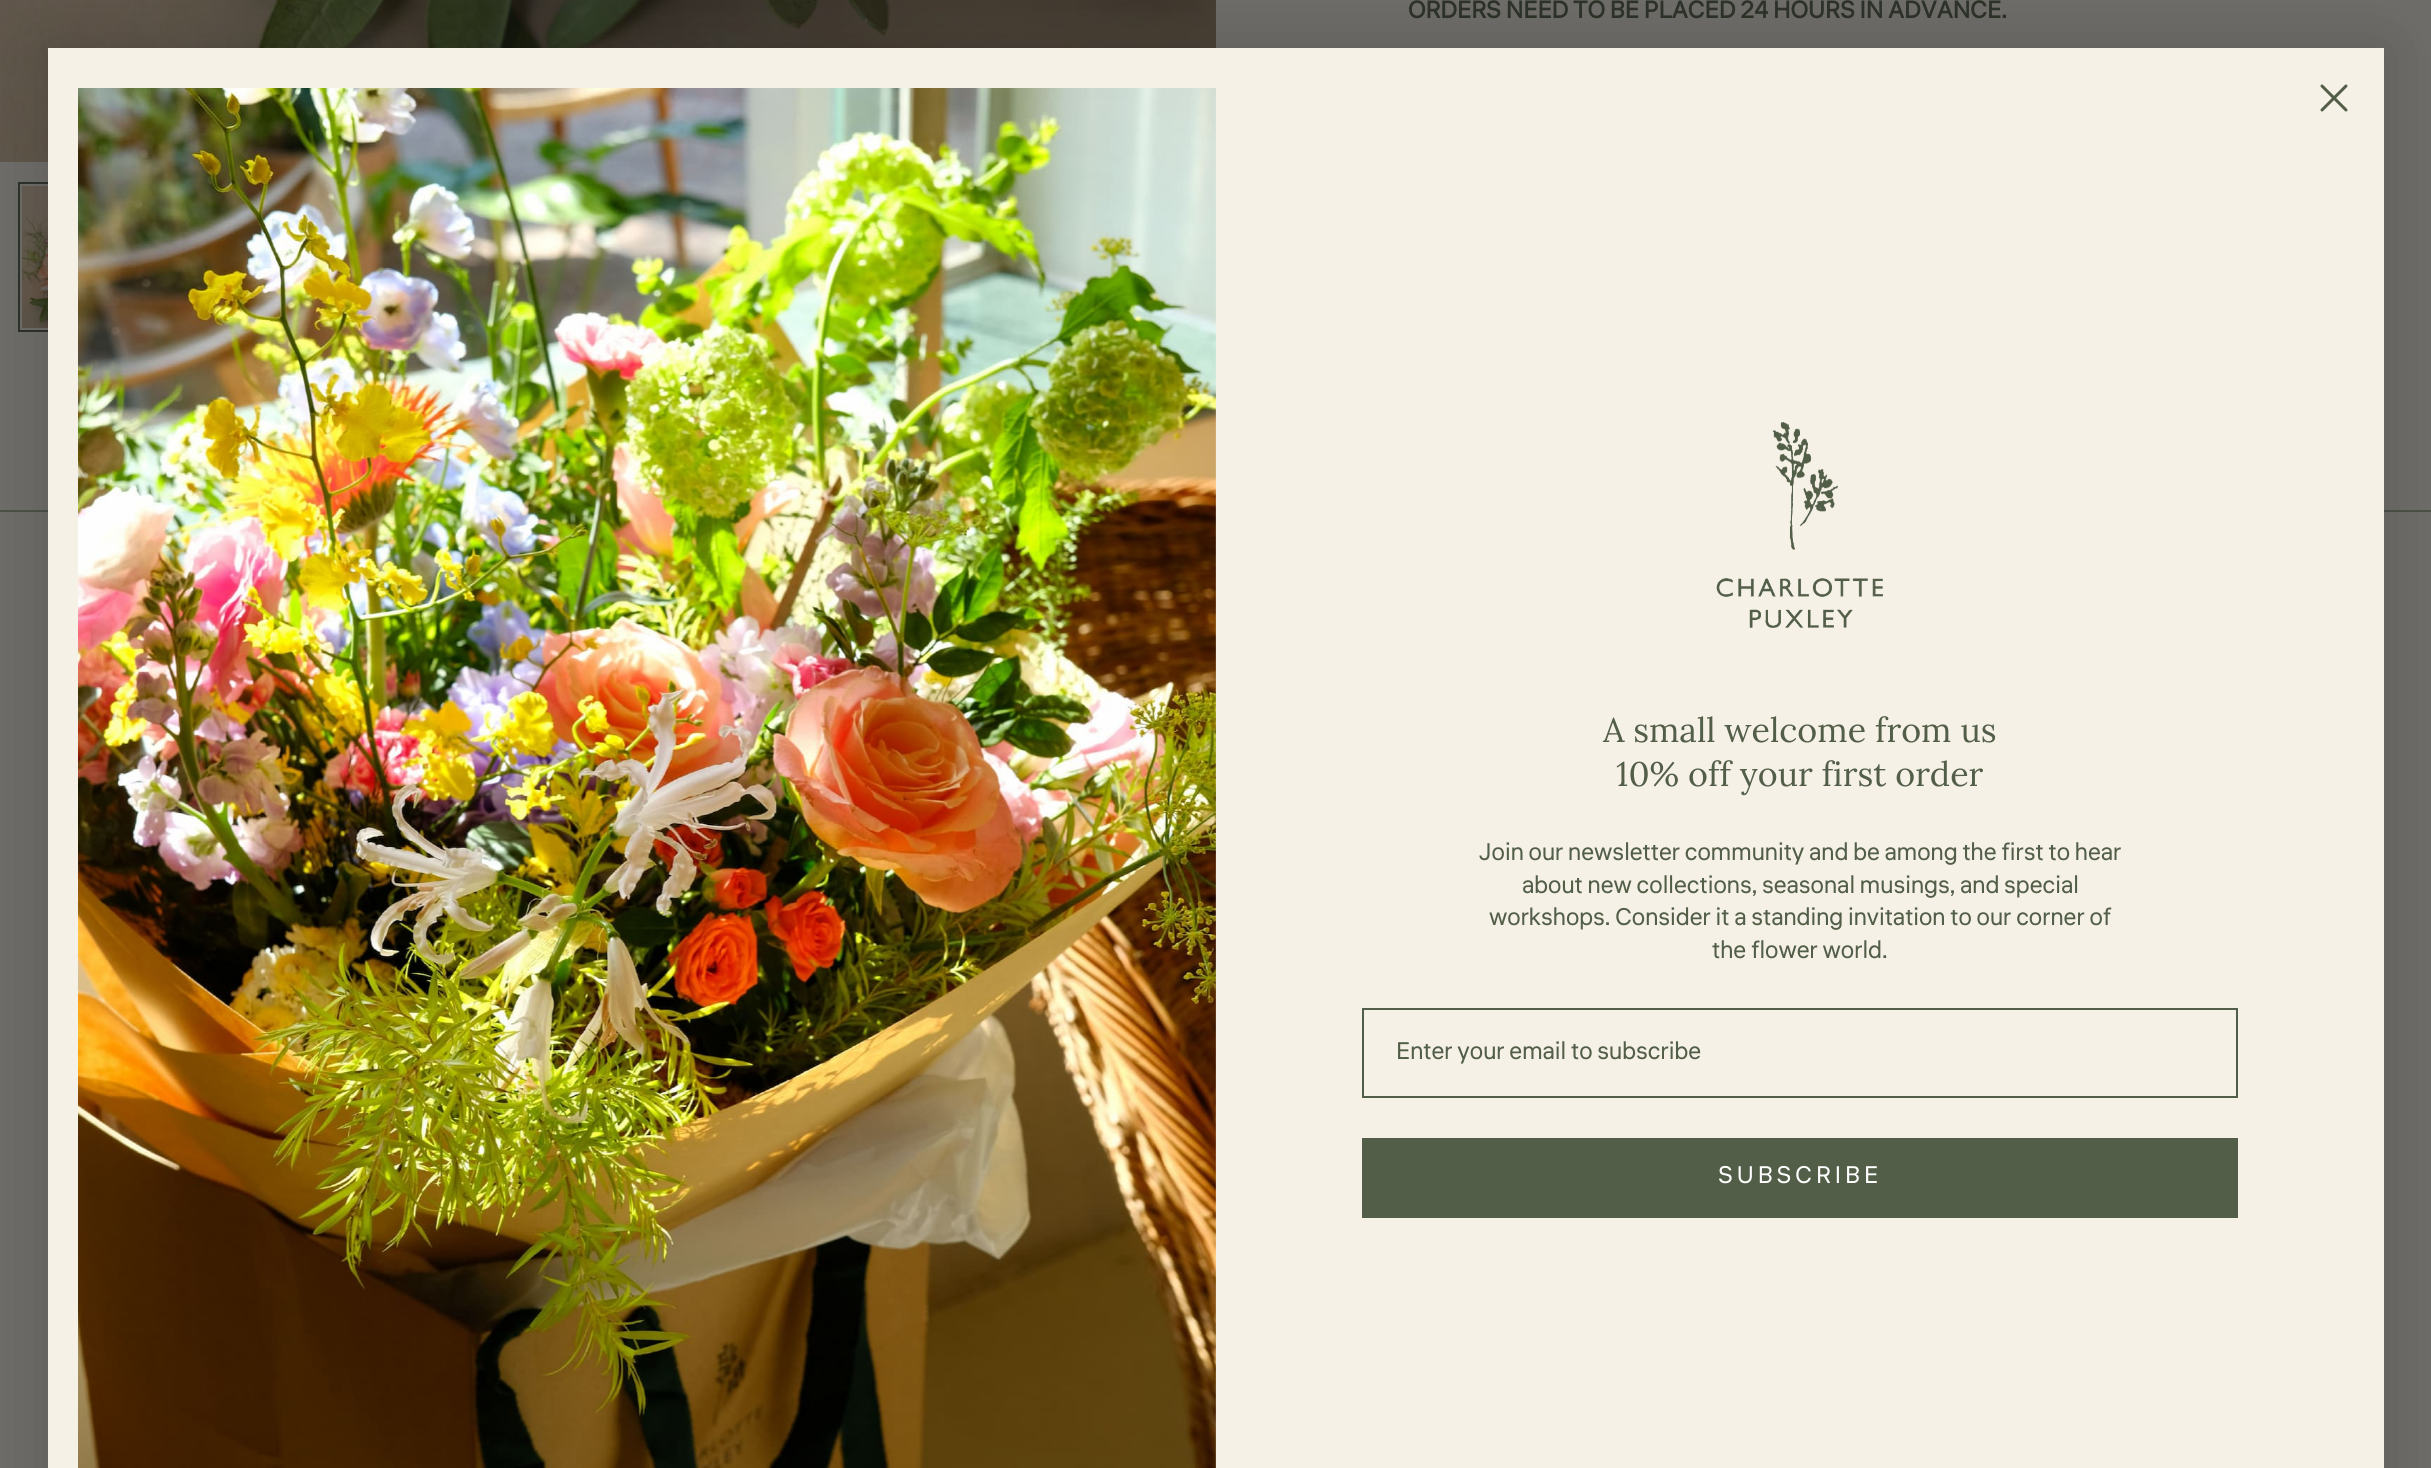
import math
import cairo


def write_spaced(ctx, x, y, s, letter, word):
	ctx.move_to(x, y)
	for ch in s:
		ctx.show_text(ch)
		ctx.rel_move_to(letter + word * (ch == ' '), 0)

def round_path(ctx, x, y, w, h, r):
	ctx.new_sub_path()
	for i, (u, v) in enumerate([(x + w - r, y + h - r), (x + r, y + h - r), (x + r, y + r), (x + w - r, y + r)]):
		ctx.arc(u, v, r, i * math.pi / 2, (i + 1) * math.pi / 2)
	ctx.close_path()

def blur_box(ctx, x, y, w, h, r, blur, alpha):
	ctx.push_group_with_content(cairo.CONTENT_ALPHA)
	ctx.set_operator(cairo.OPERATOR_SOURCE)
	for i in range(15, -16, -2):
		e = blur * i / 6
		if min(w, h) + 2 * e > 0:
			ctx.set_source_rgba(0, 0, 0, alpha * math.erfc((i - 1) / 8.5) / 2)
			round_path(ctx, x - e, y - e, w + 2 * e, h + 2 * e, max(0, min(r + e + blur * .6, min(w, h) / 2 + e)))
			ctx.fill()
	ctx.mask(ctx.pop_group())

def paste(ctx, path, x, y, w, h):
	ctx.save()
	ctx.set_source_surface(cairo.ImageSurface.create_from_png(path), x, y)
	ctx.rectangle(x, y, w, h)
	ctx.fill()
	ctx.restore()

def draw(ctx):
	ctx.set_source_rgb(0.431, 0.424, 0.408)
	ctx.paint()
	paste(ctx, 'media/1.png', 0, 0, 1216, 162)
	paste(ctx, 'media/2.png', 22, 186, 26, 142)
	ctx.rectangle(19, 183, 120, 148)
	ctx.set_source_rgb(0.176, 0.196, 0.161)
	ctx.stroke()
	ctx.select_font_face('Liter', cairo.FONT_SLANT_NORMAL, cairo.FONT_WEIGHT_BOLD)
	ctx.set_font_size(24)
	ctx.move_to(1408, 18)
	ctx.show_text('ORDERS NEED TO BE PLACED 24 HOURS IN ADVANCE.')
	ctx.set_source_rgb(0.294, 0.318, 0.278)
	ctx.rectangle(0, 510, 2431, 2)
	ctx.fill()
	ctx.set_source_rgb(0, 0, 0)
	blur_box(ctx, 48, 48, 2336, 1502, 0, 30, 0.15)
	ctx.set_source_rgb(0.961, 0.945, 0.906)
	ctx.rectangle(48, 48, 2336, 1420)
	ctx.fill()
	ctx.new_path()
	ctx.move_to(2322, 86)
	ctx.line_to(2346, 110)
	ctx.move_to(2322, 110)
	ctx.line_to(2346, 86)
	ctx.close_path()
	ctx.set_source_rgb(0.322, 0.369, 0.282)
	ctx.set_line_width(3)
	ctx.set_line_cap(cairo.LINE_CAP_ROUND)
	ctx.set_line_join(cairo.LINE_JOIN_ROUND)
	ctx.stroke()
	paste(ctx, 'media/3.png', 78, 88, 1138, 1380)
	paste(ctx, 'media/4.png', 1716, 421, 167, 207)
	ctx.select_font_face('Lora')
	ctx.set_font_size(34)
	ctx.move_to(1603, 742)
	ctx.show_text('A small welcome from us')
	ctx.move_to(1616, 786)
	ctx.show_text('10% off your first order')
	ctx.select_font_face('Liter')
	ctx.set_font_size(24)
	for x, y, s in [
		(1479, 860, 'Join our newsletter community and be among the first to hear'),
		(1522, 893, 'about new collections, seasonal musings, and special'),
		(1489, 925, 'workshops. Consider it a standing invitation to our corner of'),
		(1712, 958, 'the flower world.'),
	]:
		ctx.move_to(x, y)
		ctx.show_text(s)
	ctx.rectangle(1363, 1009, 874, 88)
	ctx.set_line_width(2)
	ctx.set_line_cap(cairo.LINE_CAP_BUTT)
	ctx.set_line_join(cairo.LINE_JOIN_MITER)
	ctx.stroke()
	ctx.move_to(1396, 1059)
	ctx.show_text('Enter your email to subscribe')
	ctx.rectangle(1362, 1138, 876, 80)
	ctx.fill()
	ctx.set_source_rgb(1, 1, 1)
	write_spaced(ctx, 1718, 1183, 'SUBSCRIBE', 4, 0)


surface = cairo.ImageSurface(cairo.FORMAT_RGB24, 2431, 1468)
ctx = cairo.Context(surface)
options = cairo.FontOptions()
options.set_hint_metrics(cairo.HINT_METRICS_OFF)
options.set_hint_style(cairo.HINT_STYLE_NONE)
ctx.set_font_options(options)
ctx.set_miter_limit(4)
draw(ctx)
surface.write_to_png('image.png')
